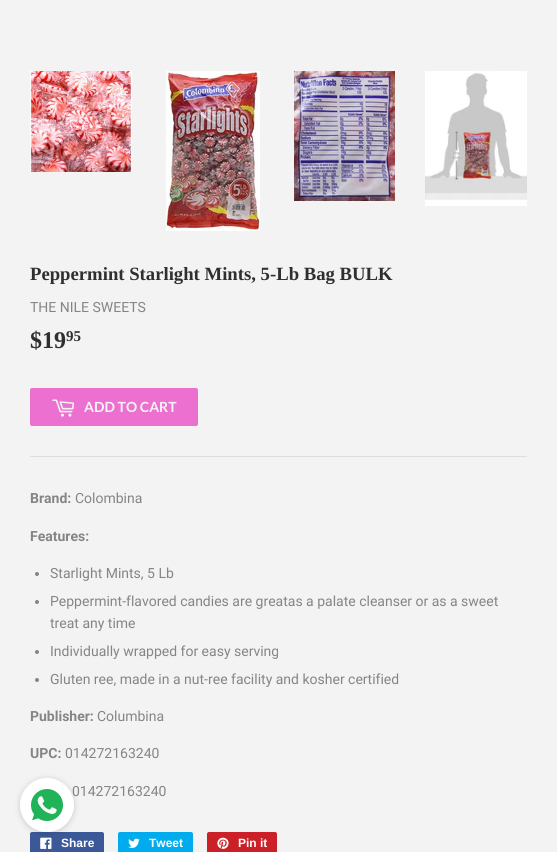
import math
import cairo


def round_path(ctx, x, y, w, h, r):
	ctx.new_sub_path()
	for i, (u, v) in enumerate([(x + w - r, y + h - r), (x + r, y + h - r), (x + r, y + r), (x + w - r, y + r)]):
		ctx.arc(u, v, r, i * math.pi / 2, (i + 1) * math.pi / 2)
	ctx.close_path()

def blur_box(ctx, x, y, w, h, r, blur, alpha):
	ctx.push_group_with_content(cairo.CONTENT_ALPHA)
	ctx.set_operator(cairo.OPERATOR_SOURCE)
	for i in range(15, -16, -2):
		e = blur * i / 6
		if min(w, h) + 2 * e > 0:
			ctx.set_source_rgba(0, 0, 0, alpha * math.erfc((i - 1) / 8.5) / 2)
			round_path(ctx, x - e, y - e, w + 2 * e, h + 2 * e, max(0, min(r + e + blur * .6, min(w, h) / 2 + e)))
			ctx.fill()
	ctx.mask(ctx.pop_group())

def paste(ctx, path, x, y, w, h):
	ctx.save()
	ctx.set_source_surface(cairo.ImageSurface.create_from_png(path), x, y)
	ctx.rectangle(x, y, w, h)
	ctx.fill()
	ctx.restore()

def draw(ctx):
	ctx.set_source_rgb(0.953, 0.953, 0.953)
	ctx.paint()
	paste(ctx, 'media/1.png', 30, 71, 102, 101)
	paste(ctx, 'media/2.png', 166, 71, 94, 160)
	paste(ctx, 'media/3.png', 294, 71, 101, 130)
	paste(ctx, 'media/4.png', 425, 71, 102, 135)
	ctx.select_font_face('Liberation Serif', cairo.FONT_SLANT_NORMAL, cairo.FONT_WEIGHT_BOLD)
	ctx.set_font_size(18.7)
	ctx.set_source_rgb(0.184, 0.184, 0.184)
	ctx.move_to(30, 280)
	ctx.show_text('Peppermint Starlight Mints, 5-Lb Bag BULK')
	ctx.select_font_face('Roboto')
	ctx.set_font_size(14)
	ctx.set_source_rgb(0.522, 0.522, 0.522)
	ctx.move_to(30, 312)
	ctx.show_text('THE NILE SWEETS')
	ctx.select_font_face('Liberation Serif', cairo.FONT_SLANT_NORMAL, cairo.FONT_WEIGHT_BOLD)
	ctx.set_font_size(24)
	ctx.set_source_rgb(0.184, 0.184, 0.184)
	ctx.move_to(30, 348)
	ctx.show_text('$19')
	ctx.set_font_size(15)
	ctx.move_to(66, 341)
	ctx.show_text('95')
	ctx.set_source_rgb(0.922, 0.439, 0.816)
	round_path(ctx, 30, 388, 168, 38, 2)
	ctx.fill()
	paste(ctx, 'media/5.png', 52, 399, 23, 18)
	ctx.select_font_face('Lato', cairo.FONT_SLANT_NORMAL, cairo.FONT_WEIGHT_BOLD)
	ctx.set_font_size(14)
	ctx.set_source_rgb(0.953, 0.953, 0.953)
	ctx.move_to(84, 412)
	ctx.show_text('ADD TO CART')
	ctx.set_source_rgb(0.871, 0.871, 0.871)
	ctx.rectangle(30, 456, 497, 1)
	ctx.fill()
	ctx.select_font_face('Roboto', cairo.FONT_SLANT_NORMAL, cairo.FONT_WEIGHT_BOLD)
	ctx.set_source_rgb(0.522, 0.522, 0.522)
	ctx.move_to(30, 503)
	ctx.show_text('Brand:')
	ctx.select_font_face('Roboto')
	ctx.move_to(75, 503)
	ctx.show_text('Colombina')
	ctx.select_font_face('Roboto', cairo.FONT_SLANT_NORMAL, cairo.FONT_WEIGHT_BOLD)
	ctx.move_to(30, 541)
	ctx.show_text('Features:')
	ctx.new_path()
	ctx.arc(37, 574, 2, 0, 2 * math.pi)
	ctx.fill()
	ctx.select_font_face('Roboto')
	ctx.move_to(50, 578)
	ctx.show_text('Starlight Mints, 5 Lb')
	ctx.new_path()
	ctx.arc(37, 602, 2, 0, 2 * math.pi)
	ctx.fill()
	ctx.move_to(50, 606)
	ctx.show_text('Peppermint-flavored candies are greatas a palate cleanser or as a sweet')
	ctx.move_to(50, 628)
	ctx.show_text('treat any time')
	ctx.new_path()
	ctx.arc(37, 652, 2, 0, 2 * math.pi)
	ctx.fill()
	ctx.move_to(50, 656)
	ctx.show_text('Individually wrapped for easy serving')
	ctx.new_path()
	ctx.arc(37, 680, 2, 0, 2 * math.pi)
	ctx.fill()
	ctx.move_to(50, 684)
	ctx.show_text('Gluten ree, made in a nut-ree facility and kosher certified')
	ctx.select_font_face('Roboto', cairo.FONT_SLANT_NORMAL, cairo.FONT_WEIGHT_BOLD)
	ctx.move_to(30, 721)
	ctx.show_text('Publisher:')
	ctx.select_font_face('Roboto')
	ctx.move_to(97, 721)
	ctx.show_text('Columbina')
	ctx.select_font_face('Roboto', cairo.FONT_SLANT_NORMAL, cairo.FONT_WEIGHT_BOLD)
	ctx.move_to(30, 758)
	ctx.show_text('UPC:')
	ctx.select_font_face('Roboto')
	ctx.move_to(65, 758)
	ctx.show_text('014272163240')
	ctx.move_to(72, 796)
	ctx.show_text('014272163240')
	ctx.set_source_rgb(0.231, 0.349, 0.596)
	round_path(ctx, 30, 832, 74, 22, 2)
	ctx.fill()
	paste(ctx, 'media/6.png', 40, 837, 12, 12)
	ctx.select_font_face('Liberation Sans', cairo.FONT_SLANT_NORMAL, cairo.FONT_WEIGHT_BOLD)
	ctx.set_font_size(12)
	ctx.set_source_rgb(1, 1, 1)
	ctx.move_to(61, 847)
	ctx.show_text('Share')
	ctx.set_source_rgb(0, 0.675, 0.929)
	round_path(ctx, 118, 832, 75, 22, 2)
	ctx.fill()
	paste(ctx, 'media/7.png', 128, 838, 12, 10)
	ctx.set_source_rgb(1, 1, 1)
	ctx.move_to(149, 847)
	ctx.show_text('Tweet')
	ctx.set_source_rgb(0.796, 0.125, 0.153)
	round_path(ctx, 207, 832, 70, 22, 2)
	ctx.fill()
	paste(ctx, 'media/8.png', 217, 837, 12, 12)
	ctx.set_source_rgb(1, 1, 1)
	ctx.move_to(238, 847)
	ctx.show_text('Pin it')
	ctx.set_source_rgb(0.106, 0.106, 0.106)
	blur_box(ctx, 20, 779, 54, 54, 27, 3, 0.2)
	ctx.set_source_rgb(1, 1, 1)
	ctx.arc(47, 805, 26.5, 0, 2 * math.pi)
	ctx.fill_preserve()
	ctx.set_line_width(1)
	ctx.stroke()
	paste(ctx, 'media/9.png', 31, 789, 32, 32)


surface = cairo.ImageSurface(cairo.FORMAT_RGB24, 557, 852)
ctx = cairo.Context(surface)
options = cairo.FontOptions()
options.set_hint_metrics(cairo.HINT_METRICS_OFF)
options.set_hint_style(cairo.HINT_STYLE_NONE)
ctx.set_font_options(options)
ctx.set_miter_limit(4)
draw(ctx)
surface.write_to_png('image.png')
